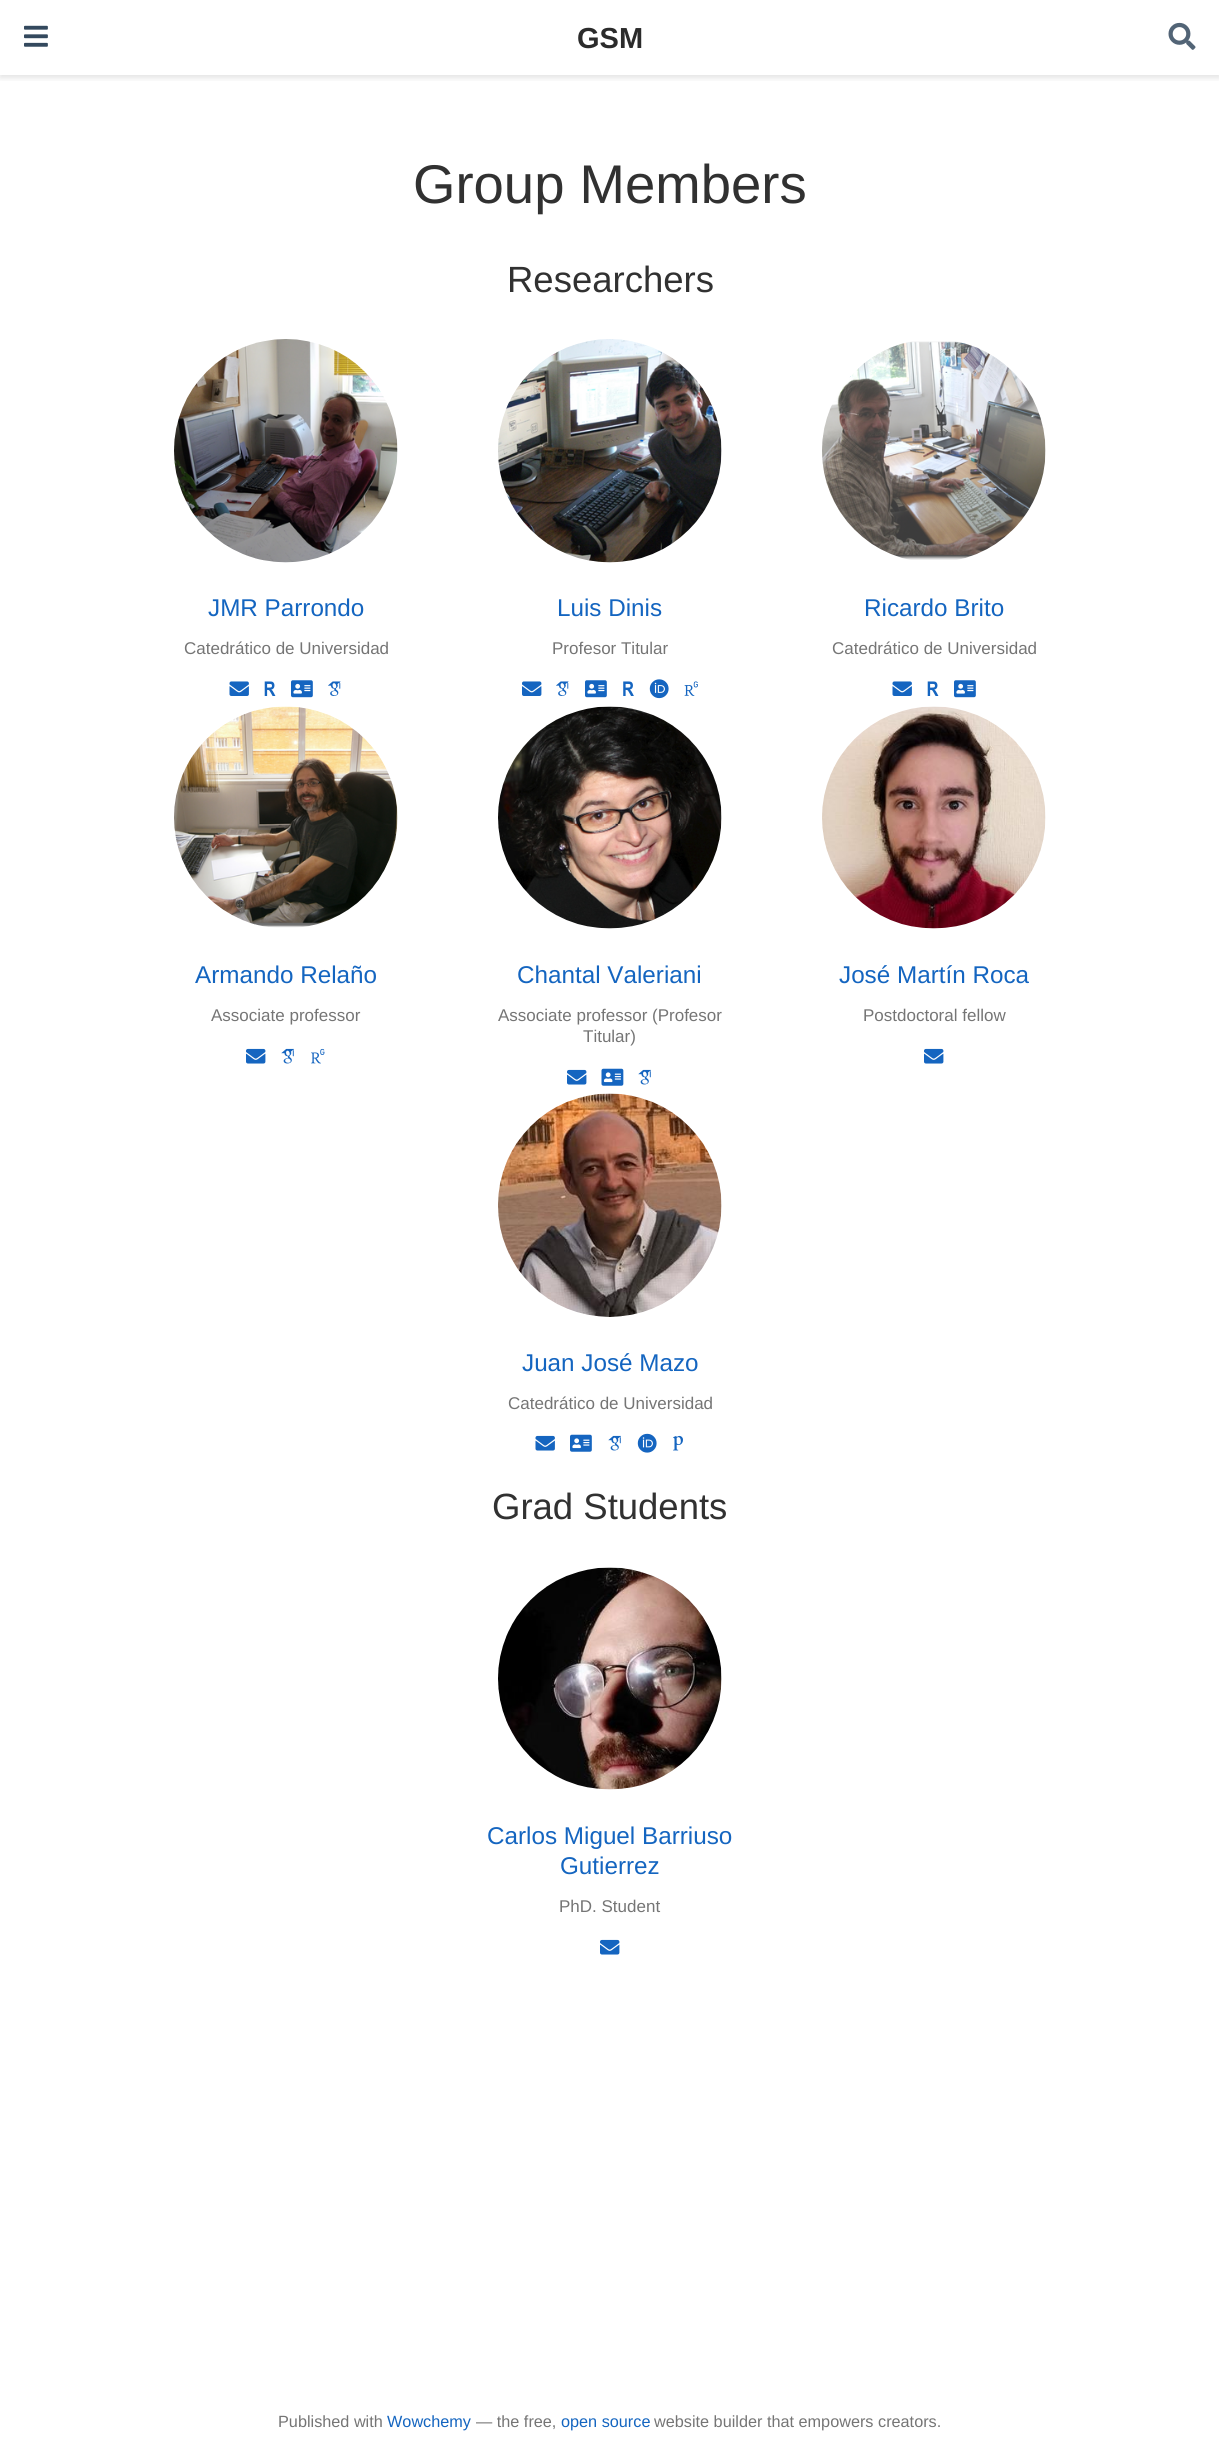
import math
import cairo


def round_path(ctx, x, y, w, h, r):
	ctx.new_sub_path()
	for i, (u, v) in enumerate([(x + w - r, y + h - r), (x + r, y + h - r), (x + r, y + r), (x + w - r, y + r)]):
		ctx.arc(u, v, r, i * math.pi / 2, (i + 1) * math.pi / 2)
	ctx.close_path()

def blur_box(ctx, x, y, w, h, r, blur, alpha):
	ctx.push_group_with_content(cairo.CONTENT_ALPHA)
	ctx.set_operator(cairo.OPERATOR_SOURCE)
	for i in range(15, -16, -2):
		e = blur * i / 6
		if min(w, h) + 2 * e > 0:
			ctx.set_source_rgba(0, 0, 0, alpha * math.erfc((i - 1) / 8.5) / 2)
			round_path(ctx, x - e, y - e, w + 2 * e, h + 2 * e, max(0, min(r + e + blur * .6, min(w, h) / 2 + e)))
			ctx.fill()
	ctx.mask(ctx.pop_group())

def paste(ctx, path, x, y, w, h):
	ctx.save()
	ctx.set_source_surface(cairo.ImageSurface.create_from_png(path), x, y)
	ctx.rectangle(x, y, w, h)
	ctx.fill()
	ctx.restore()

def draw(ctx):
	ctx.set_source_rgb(1, 1, 1)
	ctx.paint()
	ctx.save()
	ctx.rectangle(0, 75, 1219, 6)
	ctx.clip()
	ctx.set_source_rgb(0, 0, 0)
	blur_box(ctx, 0, 3, 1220, 75, 0, 3, 0.11)
	ctx.restore()
	paste(ctx, 'media/1.png', 24, 25, 24, 22)
	ctx.select_font_face('Liberation Sans', cairo.FONT_SLANT_NORMAL, cairo.FONT_WEIGHT_BOLD)
	ctx.set_font_size(29)
	ctx.set_source_rgb(0.169, 0.169, 0.169)
	ctx.move_to(577, 48)
	ctx.show_text('GSM')
	paste(ctx, 'media/2.png', 1168, 22, 28, 28)
	ctx.select_font_face('Liberation Sans')
	ctx.set_font_size(54.5)
	ctx.set_source_rgb(0.192, 0.192, 0.192)
	ctx.move_to(413, 203)
	ctx.show_text('Group Members')
	ctx.set_font_size(36.5)
	ctx.move_to(507, 292)
	ctx.show_text('Researchers')
	paste(ctx, 'media/3.png', 174, 339, 224, 224)
	ctx.set_font_size(24.25)
	ctx.set_source_rgb(0.082, 0.396, 0.753)
	ctx.move_to(208, 616)
	ctx.show_text('JMR Parrondo')
	ctx.set_font_size(17)
	ctx.set_source_rgb(0.459, 0.459, 0.459)
	ctx.move_to(184, 654)
	ctx.show_text('Catedrático de Universidad')
	paste(ctx, 'media/4.png', 229, 681, 20, 15)
	paste(ctx, 'media/5.png', 264, 681, 12, 15)
	paste(ctx, 'media/6.png', 291, 680, 22, 18)
	paste(ctx, 'media/7.png', 328, 681, 13, 15)
	paste(ctx, 'media/8.png', 498, 339, 224, 224)
	ctx.set_font_size(24.25)
	ctx.set_source_rgb(0.082, 0.396, 0.753)
	ctx.move_to(557, 616)
	ctx.show_text('Luis Dinis')
	ctx.set_font_size(17)
	ctx.set_source_rgb(0.459, 0.459, 0.459)
	ctx.move_to(552, 654)
	ctx.show_text('Profesor Titular')
	paste(ctx, 'media/9.png', 522, 681, 20, 15)
	paste(ctx, 'media/7.png', 556, 681, 13, 15)
	paste(ctx, 'media/6.png', 585, 680, 22, 18)
	paste(ctx, 'media/10.png', 623, 681, 11, 15)
	paste(ctx, 'media/11.png', 649, 679, 20, 20)
	paste(ctx, 'media/12.png', 684, 681, 14, 15)
	paste(ctx, 'media/13.png', 822, 341, 224, 219)
	ctx.set_font_size(24.25)
	ctx.set_source_rgb(0.082, 0.396, 0.753)
	ctx.move_to(864, 616)
	ctx.show_text('Ricardo Brito')
	ctx.set_font_size(17)
	ctx.set_source_rgb(0.459, 0.459, 0.459)
	ctx.move_to(832, 654)
	ctx.show_text('Catedrático de Universidad')
	paste(ctx, 'media/4.png', 892, 681, 20, 15)
	paste(ctx, 'media/5.png', 927, 681, 12, 15)
	paste(ctx, 'media/6.png', 954, 680, 22, 18)
	paste(ctx, 'media/14.png', 174, 706, 224, 222)
	ctx.set_font_size(24.25)
	ctx.set_source_rgb(0.082, 0.396, 0.753)
	ctx.move_to(195, 983)
	ctx.show_text('Armando Relaño')
	ctx.set_font_size(17)
	ctx.set_source_rgb(0.459, 0.459, 0.459)
	ctx.move_to(211, 1021)
	ctx.show_text('Associate professor')
	paste(ctx, 'media/15.png', 246, 1048, 20, 16)
	paste(ctx, 'media/16.png', 281, 1048, 13, 16)
	paste(ctx, 'media/17.png', 311, 1048, 14, 16)
	paste(ctx, 'media/18.png', 498, 706, 224, 223)
	ctx.set_font_size(24.25)
	ctx.set_source_rgb(0.082, 0.396, 0.753)
	ctx.move_to(517, 983)
	ctx.show_text('Chantal Valeriani')
	ctx.set_font_size(17)
	ctx.set_source_rgb(0.459, 0.459, 0.459)
	ctx.move_to(498, 1021)
	ctx.show_text('Associate professor (Profesor')
	ctx.move_to(583, 1042)
	ctx.show_text('Titular)')
	paste(ctx, 'media/15.png', 567, 1069, 20, 16)
	paste(ctx, 'media/19.png', 601, 1068, 23, 18)
	paste(ctx, 'media/16.png', 638, 1069, 13, 16)
	paste(ctx, 'media/20.png', 822, 706, 224, 223)
	ctx.set_font_size(24.25)
	ctx.set_source_rgb(0.082, 0.396, 0.753)
	ctx.move_to(839, 983)
	ctx.show_text('José Martín Roca')
	ctx.set_font_size(17)
	ctx.set_source_rgb(0.459, 0.459, 0.459)
	ctx.move_to(863, 1021)
	ctx.show_text('Postdoctoral fellow')
	paste(ctx, 'media/15.png', 924, 1048, 20, 16)
	paste(ctx, 'media/21.png', 498, 1093, 224, 224)
	ctx.set_font_size(24.25)
	ctx.set_source_rgb(0.082, 0.396, 0.753)
	ctx.move_to(522, 1371)
	ctx.show_text('Juan José Mazo')
	ctx.set_font_size(17)
	ctx.set_source_rgb(0.459, 0.459, 0.459)
	ctx.move_to(508, 1409)
	ctx.show_text('Catedrático de Universidad')
	paste(ctx, 'media/22.png', 535, 1435, 20, 16)
	paste(ctx, 'media/23.png', 570, 1434, 22, 18)
	paste(ctx, 'media/16.png', 608, 1435, 13, 16)
	paste(ctx, 'media/24.png', 637, 1433, 20, 20)
	paste(ctx, 'media/25.png', 673, 1435, 10, 16)
	ctx.set_font_size(36.5)
	ctx.set_source_rgb(0.192, 0.192, 0.192)
	ctx.move_to(492, 1519)
	ctx.show_text('Grad Students')
	paste(ctx, 'media/26.png', 498, 1567, 224, 223)
	ctx.set_font_size(24.25)
	ctx.set_source_rgb(0.082, 0.396, 0.753)
	ctx.move_to(487, 1844)
	ctx.show_text('Carlos Miguel Barriuso')
	ctx.move_to(560, 1874)
	ctx.show_text('Gutierrez')
	ctx.set_font_size(17)
	ctx.set_source_rgb(0.459, 0.459, 0.459)
	ctx.move_to(559, 1912)
	ctx.show_text('PhD. Student')
	paste(ctx, 'media/15.png', 600, 1939, 20, 16)
	ctx.set_font_size(16.25)
	ctx.move_to(278, 2427)
	ctx.show_text('Published with')
	ctx.set_source_rgb(0.082, 0.396, 0.753)
	ctx.move_to(387, 2427)
	ctx.show_text('Wowchemy')
	ctx.set_source_rgb(0.459, 0.459, 0.459)
	ctx.move_to(476, 2427)
	ctx.show_text('— the free,')
	ctx.set_source_rgb(0.082, 0.396, 0.753)
	ctx.move_to(561, 2427)
	ctx.show_text('open source')
	ctx.set_source_rgb(0.459, 0.459, 0.459)
	ctx.move_to(654, 2427)
	ctx.show_text('website builder that empowers creators.')


surface = cairo.ImageSurface(cairo.FORMAT_RGB24, 1219, 2459)
ctx = cairo.Context(surface)
options = cairo.FontOptions()
options.set_hint_metrics(cairo.HINT_METRICS_OFF)
options.set_hint_style(cairo.HINT_STYLE_NONE)
ctx.set_font_options(options)
ctx.set_miter_limit(4)
draw(ctx)
surface.write_to_png('image.png')
